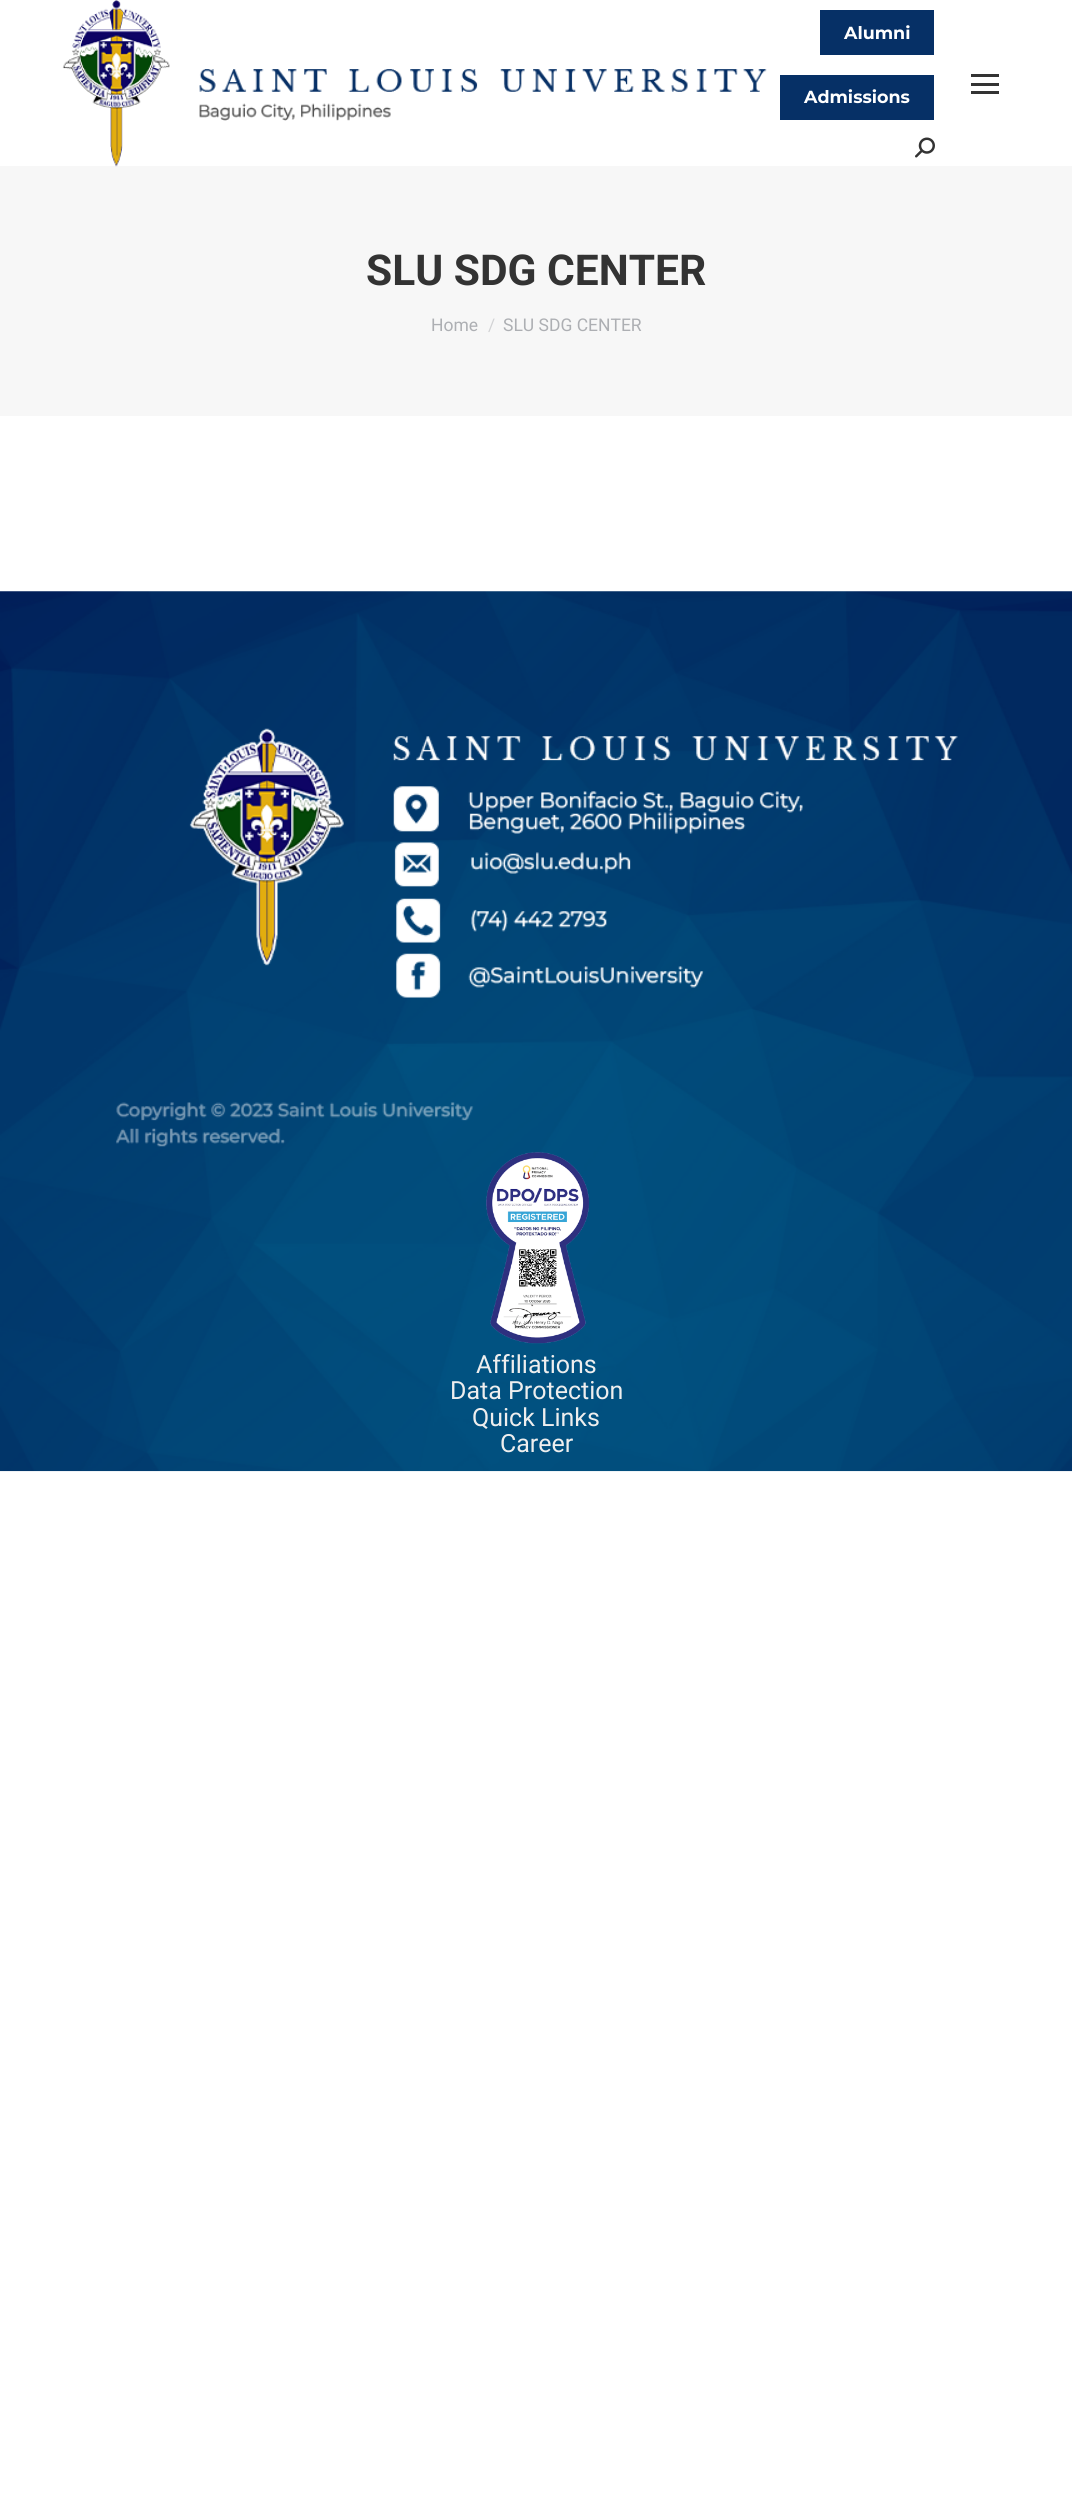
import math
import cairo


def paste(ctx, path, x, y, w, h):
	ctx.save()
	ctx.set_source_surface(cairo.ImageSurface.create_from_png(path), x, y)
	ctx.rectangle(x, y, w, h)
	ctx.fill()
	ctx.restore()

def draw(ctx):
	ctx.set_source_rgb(1, 1, 1)
	ctx.paint()
	ctx.set_source_rgb(0.965, 0.965, 0.965)
	ctx.rectangle(0, 166, 1072, 250)
	ctx.fill()
	paste(ctx, 'media/1.png', 62, 0, 705, 167)
	ctx.set_source_rgb(0.027, 0.188, 0.4)
	ctx.rectangle(820, 10, 114, 45)
	ctx.fill()
	ctx.select_font_face('Montserrat', cairo.FONT_SLANT_NORMAL, cairo.FONT_WEIGHT_BOLD)
	ctx.set_font_size(17.5)
	ctx.set_source_rgb(1, 1, 1)
	ctx.move_to(844, 39)
	ctx.show_text('Alumni')
	ctx.set_source_rgb(0.027, 0.188, 0.4)
	ctx.rectangle(780, 75, 154, 45)
	ctx.fill()
	ctx.set_source_rgb(1, 1, 1)
	ctx.move_to(804, 103)
	ctx.show_text('Admissions')
	paste(ctx, 'media/2.png', 915, 137, 20, 21)
	ctx.set_source_rgb(0.2, 0.2, 0.2)
	ctx.rectangle(971, 74, 28, 3)
	ctx.rectangle(971, 83, 28, 3)
	ctx.rectangle(971, 91, 28, 3)
	ctx.fill()
	ctx.select_font_face('Roboto', cairo.FONT_SLANT_NORMAL, cairo.FONT_WEIGHT_BOLD)
	ctx.set_font_size(42.5)
	ctx.move_to(366, 285)
	ctx.show_text('SLU SDG CENTER')
	ctx.select_font_face('Roboto')
	ctx.set_font_size(17.5)
	ctx.set_source_rgb(0.678, 0.686, 0.702)
	ctx.move_to(431, 331)
	ctx.show_text('Home')
	ctx.set_source_rgb(0.824, 0.827, 0.835)
	ctx.move_to(488, 331)
	ctx.show_text('/')
	ctx.set_source_rgb(0.678, 0.686, 0.702)
	ctx.move_to(503, 331)
	ctx.show_text('SLU SDG CENTER')
	paste(ctx, 'media/3.png', 0, 591, 1072, 881)
	paste(ctx, 'media/4.png', 116, 728, 842, 419)
	paste(ctx, 'media/5.png', 486, 1152, 103, 192)
	ctx.set_font_size(25)
	ctx.set_source_rgb(0.933, 0.933, 0.933)
	for x, y, s in [
		(476, 1373, 'Affiliations'),
		(450, 1399, 'Data Protection'),
		(472, 1426, 'Quick Links'),
		(500, 1452, 'Career'),
	]:
		ctx.move_to(x, y)
		ctx.show_text(s)


surface = cairo.ImageSurface(cairo.FORMAT_RGB24, 1072, 2501)
ctx = cairo.Context(surface)
options = cairo.FontOptions()
options.set_hint_metrics(cairo.HINT_METRICS_OFF)
options.set_hint_style(cairo.HINT_STYLE_NONE)
ctx.set_font_options(options)
ctx.set_miter_limit(4)
draw(ctx)
surface.write_to_png('image.png')
